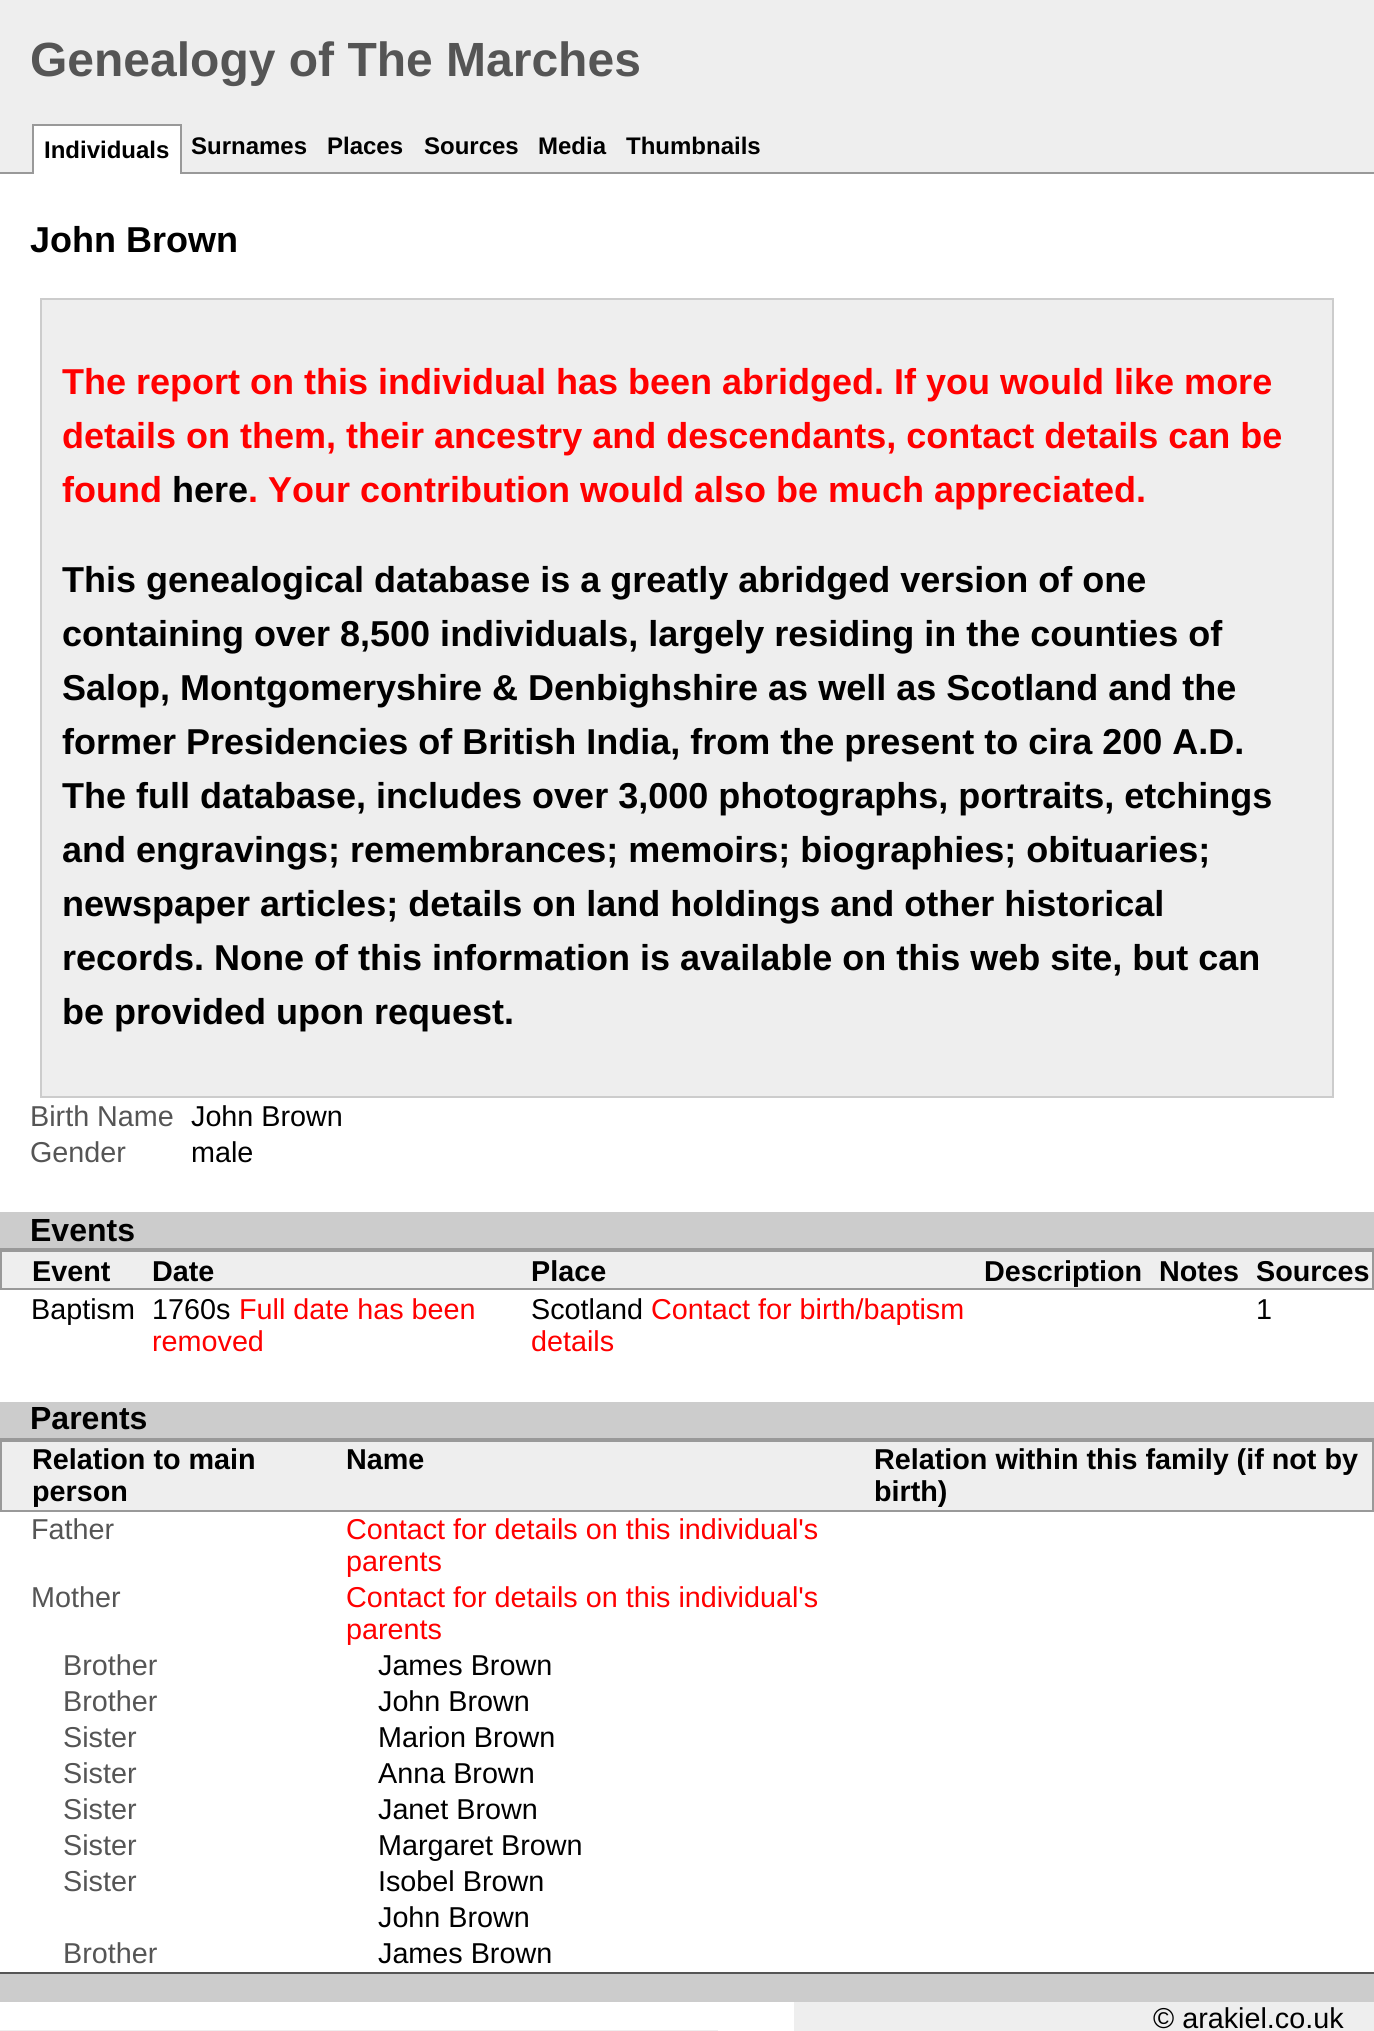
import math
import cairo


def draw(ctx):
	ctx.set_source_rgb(0.933, 0.933, 0.933)
	ctx.paint()
	ctx.select_font_face('Liberation Sans', cairo.FONT_SLANT_NORMAL, cairo.FONT_WEIGHT_BOLD)
	ctx.set_font_size(48)
	ctx.set_source_rgb(0.333, 0.333, 0.333)
	ctx.move_to(30, 76)
	ctx.show_text('Genealogy of The Marches')
	ctx.set_source_rgb(0.6, 0.6, 0.6)
	ctx.rectangle(0, 172, 1374, 2)
	ctx.fill()
	ctx.set_source_rgb(1, 1, 1)
	ctx.rectangle(34, 126, 146, 48)
	ctx.fill()
	ctx.set_source_rgb(0.6, 0.6, 0.6)
	ctx.rectangle(32, 124, 150, 2)
	ctx.rectangle(180, 124, 2, 50)
	ctx.rectangle(32, 124, 2, 50)
	ctx.fill()
	ctx.set_font_size(24)
	ctx.set_source_rgb(0, 0, 0)
	for x, y, s in [
		(44, 158, 'Individuals'),
		(191, 154, 'Surnames'),
		(327, 154, 'Places'),
		(424, 154, 'Sources'),
		(538, 154, 'Media'),
		(626, 154, 'Thumbnails'),
	]:
		ctx.move_to(x, y)
		ctx.show_text(s)
	ctx.set_source_rgb(1, 1, 1)
	ctx.rectangle(0, 174, 1374, 1857)
	ctx.fill()
	ctx.set_font_size(36)
	ctx.set_source_rgb(0, 0, 0)
	ctx.move_to(30, 252)
	ctx.show_text('John Brown')
	ctx.set_source_rgb(0.933, 0.933, 0.933)
	ctx.rectangle(41, 299, 1292, 798)
	ctx.fill_preserve()
	ctx.set_source_rgb(0.8, 0.8, 0.8)
	ctx.stroke()
	ctx.set_source_rgb(1, 0, 0)
	for x, y, s in [
		(62, 394, 'The report on this individual has been abridged. If you would like more'),
		(62, 448, 'details on them, their ancestry and descendants, contact details can be'),
		(62, 502, 'found'),
	]:
		ctx.move_to(x, y)
		ctx.show_text(s)
	ctx.set_source_rgb(0, 0, 0)
	ctx.move_to(172, 502)
	ctx.show_text('here')
	ctx.set_source_rgb(1, 0, 0)
	ctx.move_to(248, 502)
	ctx.show_text('. Your contribution would also be much appreciated.')
	ctx.set_source_rgb(0, 0, 0)
	for x, y, s in [
		(62, 592, 'This genealogical database is a greatly abridged version of one'),
		(62, 646, 'containing over 8,500 individuals, largely residing in the counties of'),
		(62, 700, 'Salop, Montgomeryshire & Denbighshire as well as Scotland and the'),
		(62, 754, 'former Presidencies of British India, from the present to cira 200 A.D.'),
		(62, 808, 'The full database, includes over 3,000 photographs, portraits, etchings'),
		(62, 862, 'and engravings; remembrances; memoirs; biographies; obituaries;'),
		(62, 916, 'newspaper articles; details on land holdings and other historical'),
		(62, 970, 'records. None of this information is available on this web site, but can'),
		(62, 1024, 'be provided upon request.'),
	]:
		ctx.move_to(x, y)
		ctx.show_text(s)
	ctx.select_font_face('Liberation Sans')
	ctx.set_font_size(28.75)
	ctx.set_source_rgb(0.333, 0.333, 0.333)
	ctx.move_to(30, 1126)
	ctx.show_text('Birth Name')
	ctx.set_source_rgb(0, 0, 0)
	ctx.move_to(191, 1126)
	ctx.show_text('John Brown')
	ctx.set_source_rgb(0.333, 0.333, 0.333)
	ctx.move_to(30, 1162)
	ctx.show_text('Gender')
	ctx.set_source_rgb(0, 0, 0)
	ctx.move_to(191, 1162)
	ctx.show_text('male')
	ctx.set_source_rgb(0.8, 0.8, 0.8)
	ctx.rectangle(0, 1212, 1374, 36)
	ctx.fill()
	ctx.set_source_rgb(0.6, 0.6, 0.6)
	ctx.rectangle(0, 1248, 1374, 2)
	ctx.fill()
	ctx.select_font_face('Liberation Sans', cairo.FONT_SLANT_NORMAL, cairo.FONT_WEIGHT_BOLD)
	ctx.set_font_size(32)
	ctx.set_source_rgb(0, 0, 0)
	ctx.move_to(30, 1241)
	ctx.show_text('Events')
	ctx.set_source_rgb(0.933, 0.933, 0.933)
	ctx.rectangle(2, 1252, 1370, 36)
	ctx.fill()
	ctx.set_source_rgb(0.6, 0.6, 0.6)
	ctx.rectangle(0, 1250, 1374, 2)
	ctx.rectangle(1372, 1250, 2, 40)
	ctx.rectangle(0, 1288, 1374, 2)
	ctx.rectangle(0, 1250, 2, 40)
	ctx.fill()
	ctx.set_font_size(28.75)
	ctx.set_source_rgb(0, 0, 0)
	for x, y, s in [
		(32, 1281, 'Event'),
		(152, 1281, 'Date'),
		(531, 1281, 'Place'),
		(984, 1281, 'Description'),
		(1159, 1281, 'Notes'),
		(1256, 1281, 'Sources'),
	]:
		ctx.move_to(x, y)
		ctx.show_text(s)
	ctx.select_font_face('Liberation Sans')
	ctx.move_to(31, 1319)
	ctx.show_text('Baptism')
	ctx.move_to(152, 1319)
	ctx.show_text('1760s')
	ctx.set_source_rgb(1, 0, 0)
	ctx.move_to(239, 1319)
	ctx.show_text('Full date has been')
	ctx.move_to(152, 1351)
	ctx.show_text('removed')
	ctx.set_source_rgb(0, 0, 0)
	ctx.move_to(531, 1319)
	ctx.show_text('Scotland')
	ctx.set_source_rgb(1, 0, 0)
	ctx.move_to(651, 1319)
	ctx.show_text('Contact for birth/baptism')
	ctx.move_to(531, 1351)
	ctx.show_text('details')
	ctx.set_source_rgb(0, 0, 0)
	ctx.move_to(1256, 1319)
	ctx.show_text('1')
	ctx.set_source_rgb(0.8, 0.8, 0.8)
	ctx.rectangle(0, 1402, 1374, 36)
	ctx.fill()
	ctx.set_source_rgb(0.6, 0.6, 0.6)
	ctx.rectangle(0, 1438, 1374, 2)
	ctx.fill()
	ctx.select_font_face('Liberation Sans', cairo.FONT_SLANT_NORMAL, cairo.FONT_WEIGHT_BOLD)
	ctx.set_font_size(32)
	ctx.set_source_rgb(0, 0, 0)
	ctx.move_to(30, 1429)
	ctx.show_text('Parents')
	ctx.set_source_rgb(0.933, 0.933, 0.933)
	ctx.rectangle(2, 1442, 1370, 68)
	ctx.fill()
	ctx.set_source_rgb(0.6, 0.6, 0.6)
	ctx.rectangle(0, 1440, 1374, 2)
	ctx.rectangle(1372, 1440, 2, 72)
	ctx.rectangle(0, 1510, 1374, 2)
	ctx.rectangle(0, 1440, 2, 72)
	ctx.fill()
	ctx.set_font_size(28.75)
	ctx.set_source_rgb(0, 0, 0)
	for x, y, s in [
		(32, 1469, 'Relation to main'),
		(32, 1501, 'person'),
		(346, 1469, 'Name'),
		(874, 1469, 'Relation within this family (if not by'),
		(874, 1501, 'birth)'),
	]:
		ctx.move_to(x, y)
		ctx.show_text(s)
	ctx.select_font_face('Liberation Sans')
	ctx.set_source_rgb(0.333, 0.333, 0.333)
	ctx.move_to(31, 1539)
	ctx.show_text('Father')
	ctx.set_source_rgb(1, 0, 0)
	ctx.move_to(346, 1539)
	ctx.show_text('Contact for details on this individual\'s')
	ctx.move_to(346, 1571)
	ctx.show_text('parents')
	ctx.set_source_rgb(0.333, 0.333, 0.333)
	ctx.move_to(31, 1607)
	ctx.show_text('Mother')
	ctx.set_source_rgb(1, 0, 0)
	ctx.move_to(346, 1607)
	ctx.show_text('Contact for details on this individual\'s')
	ctx.move_to(346, 1639)
	ctx.show_text('parents')
	ctx.set_source_rgb(0.333, 0.333, 0.333)
	ctx.move_to(63, 1675)
	ctx.show_text('Brother')
	ctx.set_source_rgb(0, 0, 0)
	ctx.move_to(378, 1675)
	ctx.show_text('James Brown')
	ctx.set_source_rgb(0.333, 0.333, 0.333)
	ctx.move_to(63, 1711)
	ctx.show_text('Brother')
	ctx.set_source_rgb(0, 0, 0)
	ctx.move_to(378, 1711)
	ctx.show_text('John Brown')
	ctx.set_source_rgb(0.333, 0.333, 0.333)
	ctx.move_to(63, 1747)
	ctx.show_text('Sister')
	ctx.set_source_rgb(0, 0, 0)
	ctx.move_to(378, 1747)
	ctx.show_text('Marion Brown')
	ctx.set_source_rgb(0.333, 0.333, 0.333)
	ctx.move_to(63, 1783)
	ctx.show_text('Sister')
	ctx.set_source_rgb(0, 0, 0)
	ctx.move_to(378, 1783)
	ctx.show_text('Anna Brown')
	ctx.set_source_rgb(0.333, 0.333, 0.333)
	ctx.move_to(63, 1819)
	ctx.show_text('Sister')
	ctx.set_source_rgb(0, 0, 0)
	ctx.move_to(378, 1819)
	ctx.show_text('Janet Brown')
	ctx.set_source_rgb(0.333, 0.333, 0.333)
	ctx.move_to(63, 1855)
	ctx.show_text('Sister')
	ctx.set_source_rgb(0, 0, 0)
	ctx.move_to(378, 1855)
	ctx.show_text('Margaret Brown')
	ctx.set_source_rgb(0.333, 0.333, 0.333)
	ctx.move_to(63, 1891)
	ctx.show_text('Sister')
	ctx.set_source_rgb(0, 0, 0)
	ctx.move_to(378, 1891)
	ctx.show_text('Isobel Brown')
	ctx.move_to(378, 1927)
	ctx.show_text('John Brown')
	ctx.set_source_rgb(0.333, 0.333, 0.333)
	ctx.move_to(63, 1963)
	ctx.show_text('Brother')
	ctx.set_source_rgb(0, 0, 0)
	ctx.move_to(378, 1963)
	ctx.show_text('James Brown')
	ctx.set_source_rgb(0.8, 0.8, 0.8)
	ctx.rectangle(0, 1974, 1374, 28)
	ctx.fill()
	ctx.set_source_rgb(0.333, 0.333, 0.333)
	ctx.rectangle(0, 1972, 1374, 2)
	ctx.fill()
	ctx.set_source_rgb(0.933, 0.933, 0.933)
	ctx.rectangle(794, 2002, 580, 29)
	ctx.fill()
	ctx.set_source_rgb(0, 0, 0)
	ctx.move_to(1153, 2028)
	ctx.show_text('© arakiel.co.uk')
	ctx.set_source_rgb(0.933, 0.933, 0.933)
	ctx.rectangle(0, 2030, 718, 1)
	ctx.fill()


surface = cairo.ImageSurface(cairo.FORMAT_RGB24, 1374, 2031)
ctx = cairo.Context(surface)
options = cairo.FontOptions()
options.set_hint_metrics(cairo.HINT_METRICS_OFF)
options.set_hint_style(cairo.HINT_STYLE_NONE)
ctx.set_font_options(options)
ctx.set_miter_limit(4)
draw(ctx)
surface.write_to_png('image.png')
